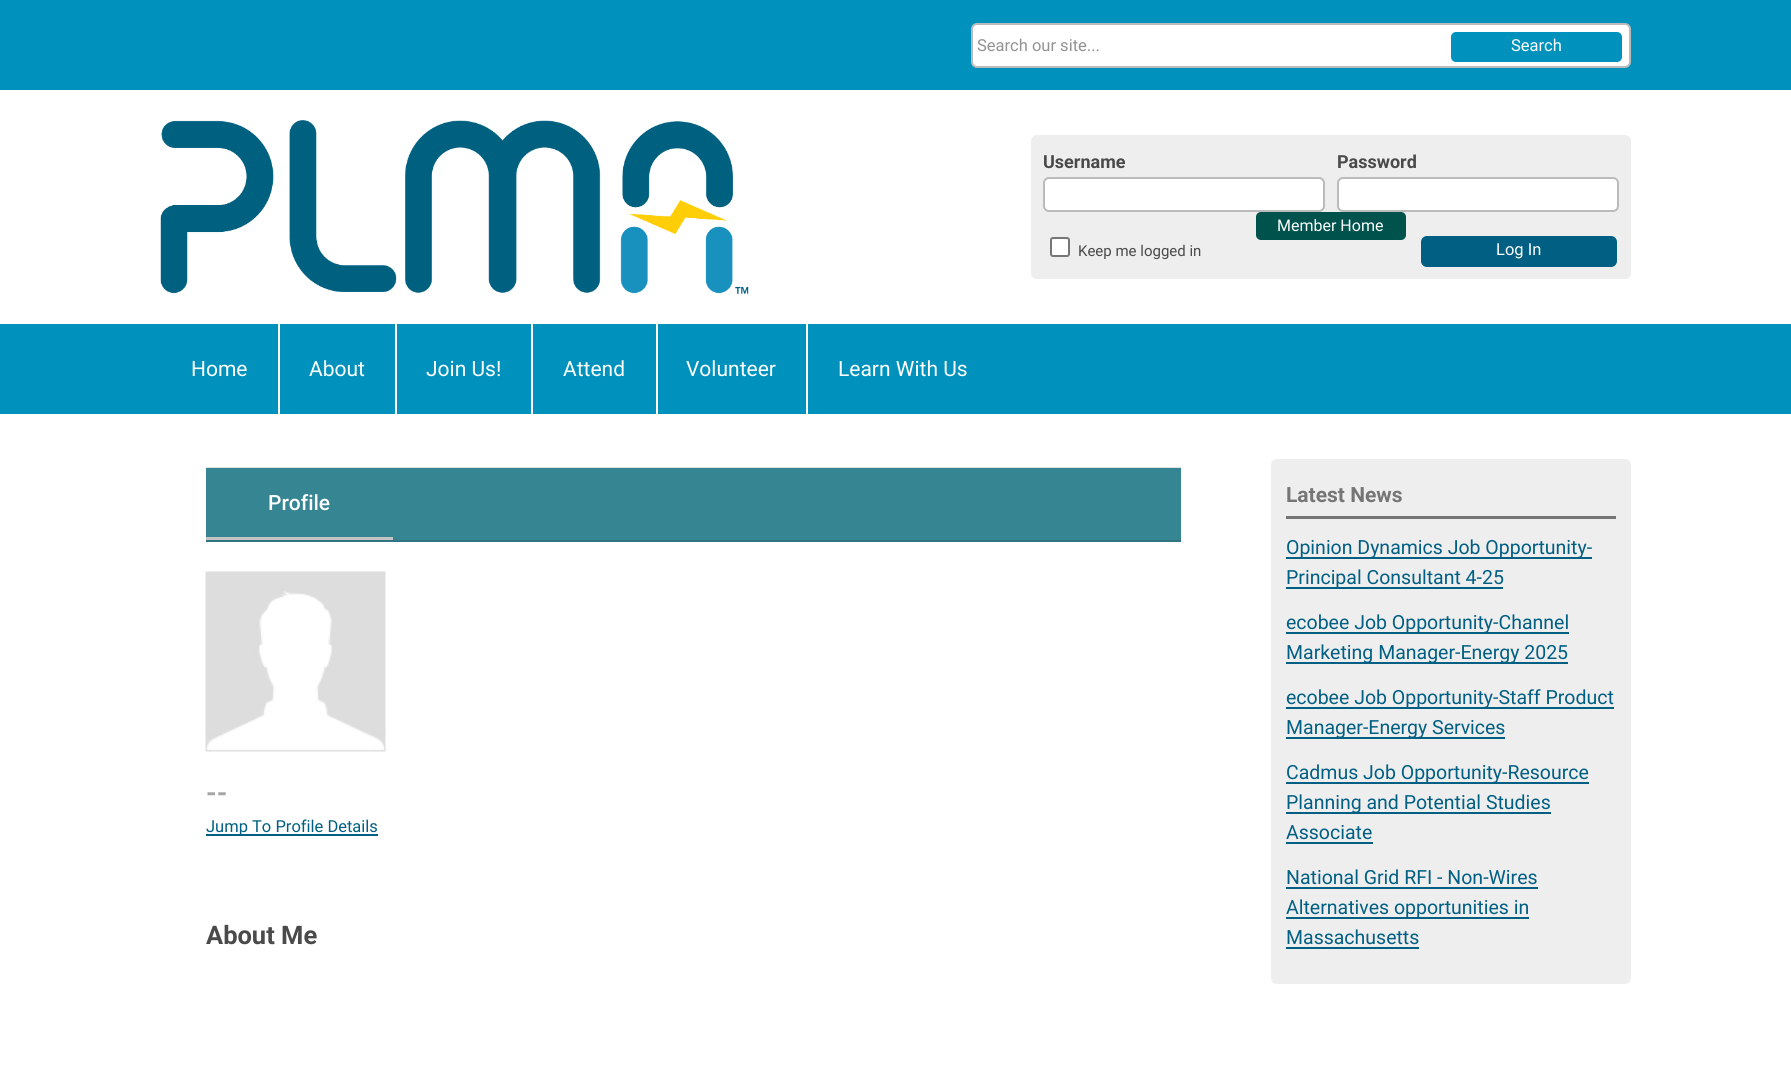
import math
import cairo


def round_path(ctx, x, y, w, h, r):
	ctx.new_sub_path()
	for i, (u, v) in enumerate([(x + w - r, y + h - r), (x + r, y + h - r), (x + r, y + r), (x + w - r, y + r)]):
		ctx.arc(u, v, r, i * math.pi / 2, (i + 1) * math.pi / 2)
	ctx.close_path()

def paste(ctx, path, x, y, w, h):
	ctx.save()
	ctx.set_source_surface(cairo.ImageSurface.create_from_png(path), x, y)
	ctx.rectangle(x, y, w, h)
	ctx.fill()
	ctx.restore()

def draw(ctx):
	ctx.set_source_rgb(1, 1, 1)
	ctx.paint()
	ctx.set_source_rgb(0, 0.573, 0.741)
	ctx.rectangle(0, 0, 1791, 90)
	ctx.fill()
	ctx.set_source_rgb(1, 1, 1)
	round_path(ctx, 972, 24, 658, 43, 5)
	ctx.fill_preserve()
	ctx.set_source_rgb(0.733, 0.733, 0.733)
	ctx.stroke()
	ctx.select_font_face('Roboto')
	ctx.set_font_size(16.5)
	ctx.set_source_rgb(0.573, 0.573, 0.573)
	ctx.move_to(977, 51)
	ctx.show_text('Search our site...')
	ctx.set_source_rgb(0, 0.573, 0.741)
	round_path(ctx, 1451, 32, 171, 30, 5)
	ctx.fill()
	ctx.set_source_rgb(1, 1, 1)
	ctx.move_to(1511, 51)
	ctx.show_text('Search')
	paste(ctx, 'media/1.png', 160, 120, 589, 174)
	ctx.set_source_rgb(0.933, 0.933, 0.933)
	round_path(ctx, 1031, 135, 600, 144, 6)
	ctx.fill()
	ctx.select_font_face('Roboto', cairo.FONT_SLANT_NORMAL, cairo.FONT_WEIGHT_BOLD)
	ctx.set_font_size(18)
	ctx.set_source_rgb(0.29, 0.29, 0.29)
	ctx.move_to(1043, 168)
	ctx.show_text('Username')
	ctx.set_source_rgb(1, 1, 1)
	round_path(ctx, 1044, 178, 280, 33, 5)
	ctx.fill_preserve()
	ctx.set_source_rgb(0.733, 0.733, 0.733)
	ctx.stroke()
	ctx.set_source_rgb(0.29, 0.29, 0.29)
	ctx.move_to(1337, 168)
	ctx.show_text('Password')
	ctx.set_source_rgb(1, 1, 1)
	round_path(ctx, 1338, 178, 280, 33, 5)
	ctx.fill_preserve()
	ctx.set_source_rgb(0.733, 0.733, 0.733)
	ctx.stroke()
	ctx.set_source_rgb(1, 1, 1)
	round_path(ctx, 1051, 238, 18, 18, 2)
	ctx.fill_preserve()
	ctx.set_source_rgb(0.463, 0.463, 0.463)
	ctx.stroke()
	ctx.select_font_face('Roboto')
	ctx.set_font_size(15)
	ctx.set_source_rgb(0.29, 0.29, 0.29)
	ctx.move_to(1078, 256)
	ctx.show_text('Keep me logged in')
	ctx.set_source_rgb(0, 0.373, 0.514)
	round_path(ctx, 1422, 237, 194, 29, 5)
	ctx.fill_preserve()
	ctx.stroke()
	ctx.set_font_size(16.5)
	ctx.set_source_rgb(1, 1, 1)
	ctx.move_to(1496, 255)
	ctx.show_text('Log In')
	ctx.set_source_rgb(0, 0.322, 0.302)
	round_path(ctx, 1256, 212, 150, 28, 5)
	ctx.fill()
	ctx.set_font_size(16)
	ctx.set_source_rgb(1, 1, 1)
	ctx.move_to(1277, 231)
	ctx.show_text('Member Home')
	ctx.set_source_rgb(0, 0.573, 0.741)
	ctx.rectangle(0, 324, 1791, 90)
	ctx.fill()
	ctx.set_font_size(21)
	ctx.set_source_rgb(1, 1, 1)
	ctx.move_to(191, 376)
	ctx.show_text('Home')
	ctx.rectangle(278, 324, 2, 90)
	ctx.fill()
	ctx.move_to(309, 376)
	ctx.show_text('About')
	ctx.rectangle(395, 324, 2, 90)
	ctx.fill()
	ctx.move_to(426, 376)
	ctx.show_text('Join Us!')
	ctx.rectangle(531, 324, 2, 90)
	ctx.fill()
	ctx.move_to(563, 376)
	ctx.show_text('Attend')
	ctx.rectangle(656, 324, 2, 90)
	ctx.fill()
	ctx.move_to(686, 376)
	ctx.show_text('Volunteer')
	ctx.rectangle(806, 324, 2, 90)
	ctx.fill()
	ctx.move_to(838, 376)
	ctx.show_text('Learn With Us')
	ctx.set_source_rgb(0.878, 0.878, 0.878)
	ctx.rectangle(206, 467, 975, 1)
	ctx.fill()
	ctx.set_source_rgb(0.212, 0.522, 0.576)
	ctx.rectangle(206, 468, 975, 72)
	ctx.fill()
	ctx.set_source_rgb(0.188, 0.459, 0.506)
	ctx.rectangle(206, 540, 975, 2)
	ctx.fill()
	ctx.select_font_face('Roboto Medium')
	ctx.set_source_rgb(1, 1, 1)
	ctx.move_to(268, 510)
	ctx.show_text('Profile')
	ctx.set_source_rgb(0.769, 0.769, 0.769)
	ctx.rectangle(206, 537, 187, 3)
	ctx.fill()
	paste(ctx, 'media/2.png', 205, 571, 181, 181)
	ctx.select_font_face('Roboto', cairo.FONT_SLANT_NORMAL, cairo.FONT_WEIGHT_BOLD)
	ctx.set_font_size(27)
	ctx.set_source_rgb(0.647, 0.647, 0.647)
	ctx.move_to(206, 802)
	ctx.show_text('--')
	ctx.set_source_rgb(0, 0.373, 0.514)
	ctx.rectangle(206, 834, 172, 2)
	ctx.fill()
	ctx.select_font_face('Roboto')
	ctx.set_font_size(16.5)
	ctx.move_to(206, 832)
	ctx.show_text('Jump To Profile Details')
	ctx.select_font_face('Roboto', cairo.FONT_SLANT_NORMAL, cairo.FONT_WEIGHT_BOLD)
	ctx.set_font_size(25.5)
	ctx.set_source_rgb(0.29, 0.29, 0.29)
	ctx.move_to(206, 944)
	ctx.show_text('About Me')
	ctx.set_source_rgb(0.933, 0.933, 0.933)
	round_path(ctx, 1271, 459, 360, 525, 6)
	ctx.fill()
	ctx.set_source_rgb(0.459, 0.459, 0.459)
	ctx.rectangle(1286, 516, 330, 3)
	ctx.fill()
	ctx.set_font_size(21)
	ctx.move_to(1286, 502)
	ctx.show_text('Latest News')
	ctx.set_source_rgb(0, 0.373, 0.514)
	ctx.rectangle(1286, 557, 306, 2)
	ctx.fill()
	ctx.select_font_face('Roboto')
	ctx.set_font_size(19.5)
	ctx.move_to(1286, 554)
	ctx.show_text('Opinion Dynamics Job Opportunity-')
	ctx.rectangle(1286, 587, 217, 2)
	ctx.fill()
	ctx.move_to(1286, 584)
	ctx.show_text('Principal Consultant 4-25')
	ctx.rectangle(1286, 632, 283, 2)
	ctx.fill()
	ctx.move_to(1286, 629)
	ctx.show_text('ecobee Job Opportunity-Channel')
	ctx.rectangle(1286, 662, 282, 2)
	ctx.fill()
	ctx.move_to(1286, 659)
	ctx.show_text('Marketing Manager-Energy 2025')
	ctx.rectangle(1286, 707, 328, 2)
	ctx.fill()
	ctx.move_to(1286, 704)
	ctx.show_text('ecobee Job Opportunity-Staff Product')
	ctx.rectangle(1286, 737, 219, 2)
	ctx.fill()
	ctx.move_to(1286, 734)
	ctx.show_text('Manager-Energy Services')
	ctx.rectangle(1286, 782, 303, 2)
	ctx.fill()
	ctx.move_to(1286, 779)
	ctx.show_text('Cadmus Job Opportunity-Resource')
	ctx.rectangle(1286, 812, 265, 2)
	ctx.fill()
	ctx.move_to(1286, 809)
	ctx.show_text('Planning and Potential Studies')
	ctx.move_to(1286, 839)
	ctx.show_text('Associate')
	ctx.rectangle(1286, 842, 87, 2)
	ctx.fill()
	ctx.move_to(1286, 884)
	ctx.show_text('National Grid RFI - Non-Wires')
	ctx.rectangle(1286, 887, 252, 2)
	ctx.fill()
	ctx.rectangle(1286, 917, 243, 2)
	ctx.fill()
	ctx.move_to(1286, 914)
	ctx.show_text('Alternatives opportunities in')
	ctx.move_to(1286, 944)
	ctx.show_text('Massachusetts')
	ctx.rectangle(1286, 947, 133, 2)
	ctx.fill()


surface = cairo.ImageSurface(cairo.FORMAT_RGB24, 1791, 1090)
ctx = cairo.Context(surface)
options = cairo.FontOptions()
options.set_hint_metrics(cairo.HINT_METRICS_OFF)
options.set_hint_style(cairo.HINT_STYLE_NONE)
ctx.set_font_options(options)
ctx.set_miter_limit(4)
draw(ctx)
surface.write_to_png('image.png')
